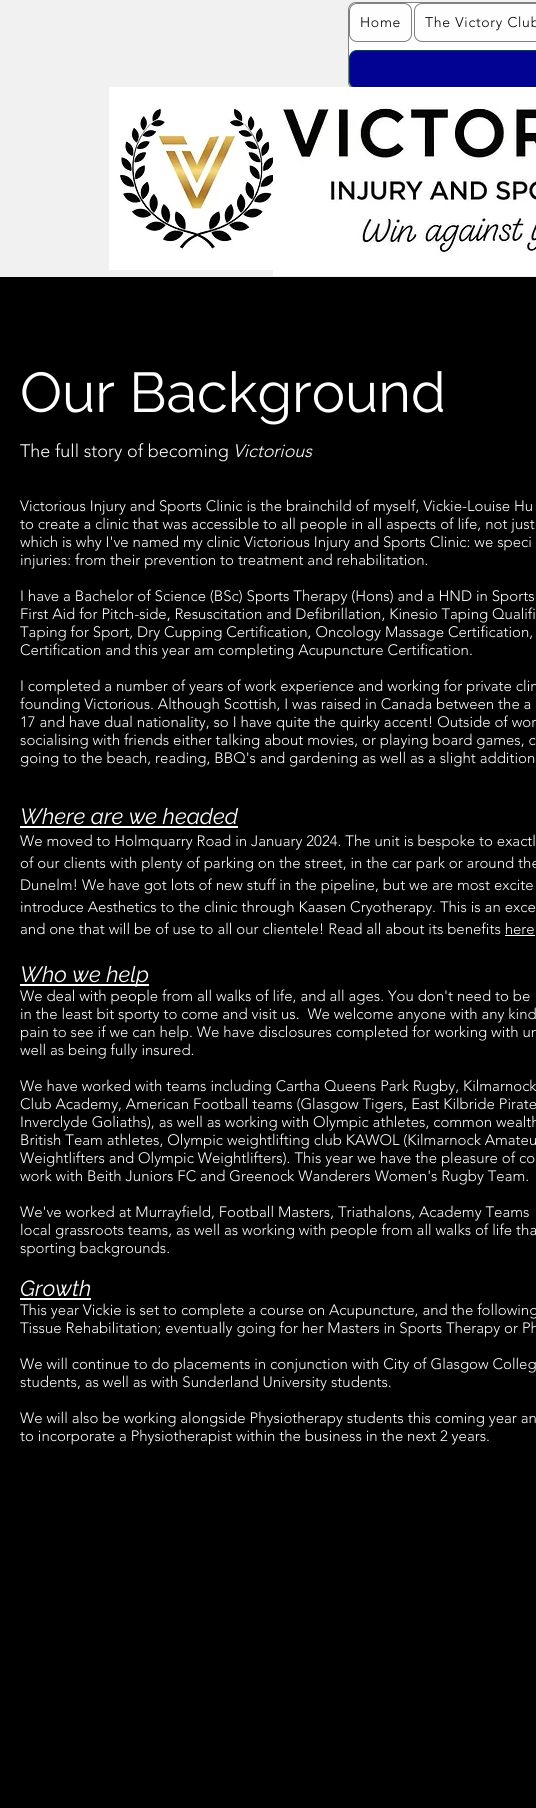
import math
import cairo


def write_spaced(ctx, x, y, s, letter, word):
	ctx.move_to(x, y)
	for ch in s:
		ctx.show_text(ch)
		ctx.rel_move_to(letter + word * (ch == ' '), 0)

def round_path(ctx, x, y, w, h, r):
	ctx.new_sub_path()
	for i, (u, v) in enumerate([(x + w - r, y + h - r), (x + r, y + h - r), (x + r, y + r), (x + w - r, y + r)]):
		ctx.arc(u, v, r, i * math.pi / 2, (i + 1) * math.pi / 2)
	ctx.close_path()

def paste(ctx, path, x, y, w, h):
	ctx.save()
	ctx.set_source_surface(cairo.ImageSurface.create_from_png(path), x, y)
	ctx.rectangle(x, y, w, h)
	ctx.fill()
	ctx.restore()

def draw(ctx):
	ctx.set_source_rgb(0, 0, 0)
	ctx.paint()
	ctx.set_source_rgb(0.945, 0.945, 0.945)
	ctx.rectangle(0, 0, 536, 277)
	ctx.fill()
	ctx.set_source_rgb(0.996, 0.996, 0.996)
	round_path(ctx, 348.5, 2.5, 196, 87, 7.5)
	ctx.fill_preserve()
	ctx.set_source_rgb(0.502, 0.502, 0.502)
	ctx.set_line_width(1)
	ctx.stroke()
	round_path(ctx, 349.5, 3.5, 62, 38, 7.5)
	ctx.stroke()
	ctx.select_font_face('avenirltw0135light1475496 Light')
	ctx.set_font_size(14)
	ctx.set_source_rgb(0, 0, 0)
	write_spaced(ctx, 360, 27, 'Home', 0.75, 0)
	round_path(ctx, 414.5, 3.5, 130, 38, 7.5)
	ctx.set_source_rgb(0.502, 0.502, 0.502)
	ctx.stroke()
	ctx.set_source_rgb(0, 0, 0)
	write_spaced(ctx, 425, 27, 'The Victory Club', 0.75, 0)
	ctx.set_source_rgb(0.008, 0.008, 0.576)
	round_path(ctx, 349.5, 50.5, 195, 38, 7.5)
	ctx.fill_preserve()
	ctx.set_source_rgb(0, 0.271, 0.141)
	ctx.stroke()
	paste(ctx, 'media/1.png', 109, 87, 164, 183)
	paste(ctx, 'media/2.png', 273, 87, 263, 189)
	ctx.select_font_face('Raleway')
	ctx.set_font_size(56)
	ctx.set_source_rgb(1, 1, 1)
	ctx.move_to(20, 412)
	ctx.show_text('Our Background')
	ctx.select_font_face('avenirltw0135light1475496 Light')
	ctx.set_font_size(18)
	ctx.move_to(20, 457)
	ctx.show_text('The full story of becoming')
	ctx.select_font_face('avenirltw0135light1475496 Light', cairo.FONT_SLANT_ITALIC)
	ctx.move_to(233, 457)
	ctx.show_text('Victorious')
	ctx.select_font_face('avenirltw0135light1475496 Light')
	ctx.set_font_size(15)
	for x, y, s in [
		(20, 511, 'Victorious Injury and Sports Clinic is the brainchild of myself, Vickie-Louise Hu'),
		(20, 529, 'to create a clinic that was accessible to all people in all aspects of life, not just'),
		(20, 547, 'which is why I\'ve named my clinic Victorious Injury and Sports Clinic: we speci'),
		(20, 565, 'injuries: from their prevention to treatment and rehabilitation.'),
		(20, 601, 'I have a Bachelor of Science (BSc) Sports Therapy (Hons) and a HND in Sports'),
		(20, 619, 'First Aid for Pitch-side, Resuscitation and Defibrillation, Kinesio Taping Qualifi'),
		(20, 637, 'Taping for Sport, Dry Cupping Certification, Oncology Massage Certification,'),
		(20, 655, 'Certification and this year am completing Acupuncture Certification.'),
		(20, 691, 'I completed a number of years of work experience and working for private clin'),
		(20, 709, 'founding Victorious. Although Scottish, I was raised in Canada between the a'),
		(20, 727, '17 and have dual nationality, so I have quite the quirky accent! Outside of wor'),
		(20, 745, 'socialising with friends either talking about movies, or playing board games, c'),
		(20, 763, 'going to the beach, reading, BBQ\'s and gardening as well as a slight addition'),
	]:
		ctx.move_to(x, y)
		ctx.show_text(s)
	ctx.select_font_face('Raleway', cairo.FONT_SLANT_ITALIC)
	ctx.set_font_size(22)
	ctx.move_to(20, 824)
	ctx.show_text('Where are we headed')
	ctx.rectangle(20, 826, 218, 2)
	ctx.fill()
	ctx.select_font_face('avenirltw0135light1475496 Light')
	ctx.set_font_size(15)
	for x, y, s in [
		(20, 846, 'We moved to Holmquarry Road in January 2024. The unit is bespoke to exactl'),
		(20, 868, 'of our clients with plenty of parking on the street, in the car park or around the'),
		(20, 890, 'Dunelm! We have got lots of new stuff in the pipeline, but we are most excite'),
		(20, 912, 'introduce Aesthetics to the clinic through Kaasen Cryotherapy. This is an exce'),
		(20, 934, 'and one that will be of use to all our clientele! Read all about its benefits here'),
	]:
		ctx.move_to(x, y)
		ctx.show_text(s)
	ctx.rectangle(505, 935, 30, 1)
	ctx.fill()
	ctx.rectangle(20, 984, 129, 2)
	ctx.fill()
	ctx.select_font_face('Raleway', cairo.FONT_SLANT_ITALIC)
	ctx.set_font_size(22)
	ctx.move_to(20, 982)
	ctx.show_text('Who we help')
	ctx.select_font_face('avenirltw0135light1475496 Light')
	ctx.set_font_size(15)
	for x, y, s in [
		(20, 1001, 'We deal with people from all walks of life, and all ages. You don\'t need to be'),
		(20, 1019, 'in the least bit sporty to come and visit us.  We welcome anyone with any kind'),
		(20, 1037, 'pain to see if we can help. We have disclosures completed for working with un'),
		(20, 1055, 'well as being fully insured.'),
		(20, 1091, 'We have worked with teams including Cartha Queens Park Rugby, Kilmarnock'),
		(20, 1109, 'Club Academy, American Football teams (Glasgow Tigers, East Kilbride Pirate'),
		(20, 1127, 'Inverclyde Goliaths), as well as working with Olympic athletes, common wealth'),
		(20, 1145, 'British Team athletes, Olympic weightlifting club KAWOL (Kilmarnock Amateu'),
		(20, 1163, 'Weightlifters and Olympic Weightlifters). This year we have the pleasure of co'),
		(20, 1181, 'work with Beith Juniors FC and Greenock Wanderers Women\'s Rugby Team.'),
		(20, 1217, 'We\'ve worked at Murrayfield, Football Masters, Triathalons, Academy Teams'),
		(20, 1235, 'local grassroots teams, as well as working with people from all walks of life tha'),
		(20, 1253, 'sporting backgrounds.'),
	]:
		ctx.move_to(x, y)
		ctx.show_text(s)
	ctx.select_font_face('Raleway', cairo.FONT_SLANT_ITALIC)
	ctx.set_font_size(22)
	ctx.move_to(20, 1296)
	ctx.show_text('Growth')
	ctx.rectangle(20, 1298, 71, 2)
	ctx.fill()
	ctx.select_font_face('avenirltw0135light1475496 Light')
	ctx.set_font_size(15)
	for x, y, s in [
		(20, 1315, 'This year Vickie is set to complete a course on Acupuncture, and the following'),
		(20, 1333, 'Tissue Rehabilitation; eventually going for her Masters in Sports Therapy or Ph'),
		(20, 1369, 'We will continue to do placements in conjunction with City of Glasgow Colleg'),
		(20, 1387, 'students, as well as with Sunderland University students.'),
		(20, 1423, 'We will also be working alongside Physiotherapy students this coming year an'),
		(20, 1441, 'to incorporate a Physiotherapist within the business in the next 2 years.'),
	]:
		ctx.move_to(x, y)
		ctx.show_text(s)


surface = cairo.ImageSurface(cairo.FORMAT_RGB24, 536, 1808)
ctx = cairo.Context(surface)
options = cairo.FontOptions()
options.set_hint_metrics(cairo.HINT_METRICS_OFF)
options.set_hint_style(cairo.HINT_STYLE_NONE)
ctx.set_font_options(options)
ctx.set_miter_limit(4)
draw(ctx)
surface.write_to_png('image.png')
